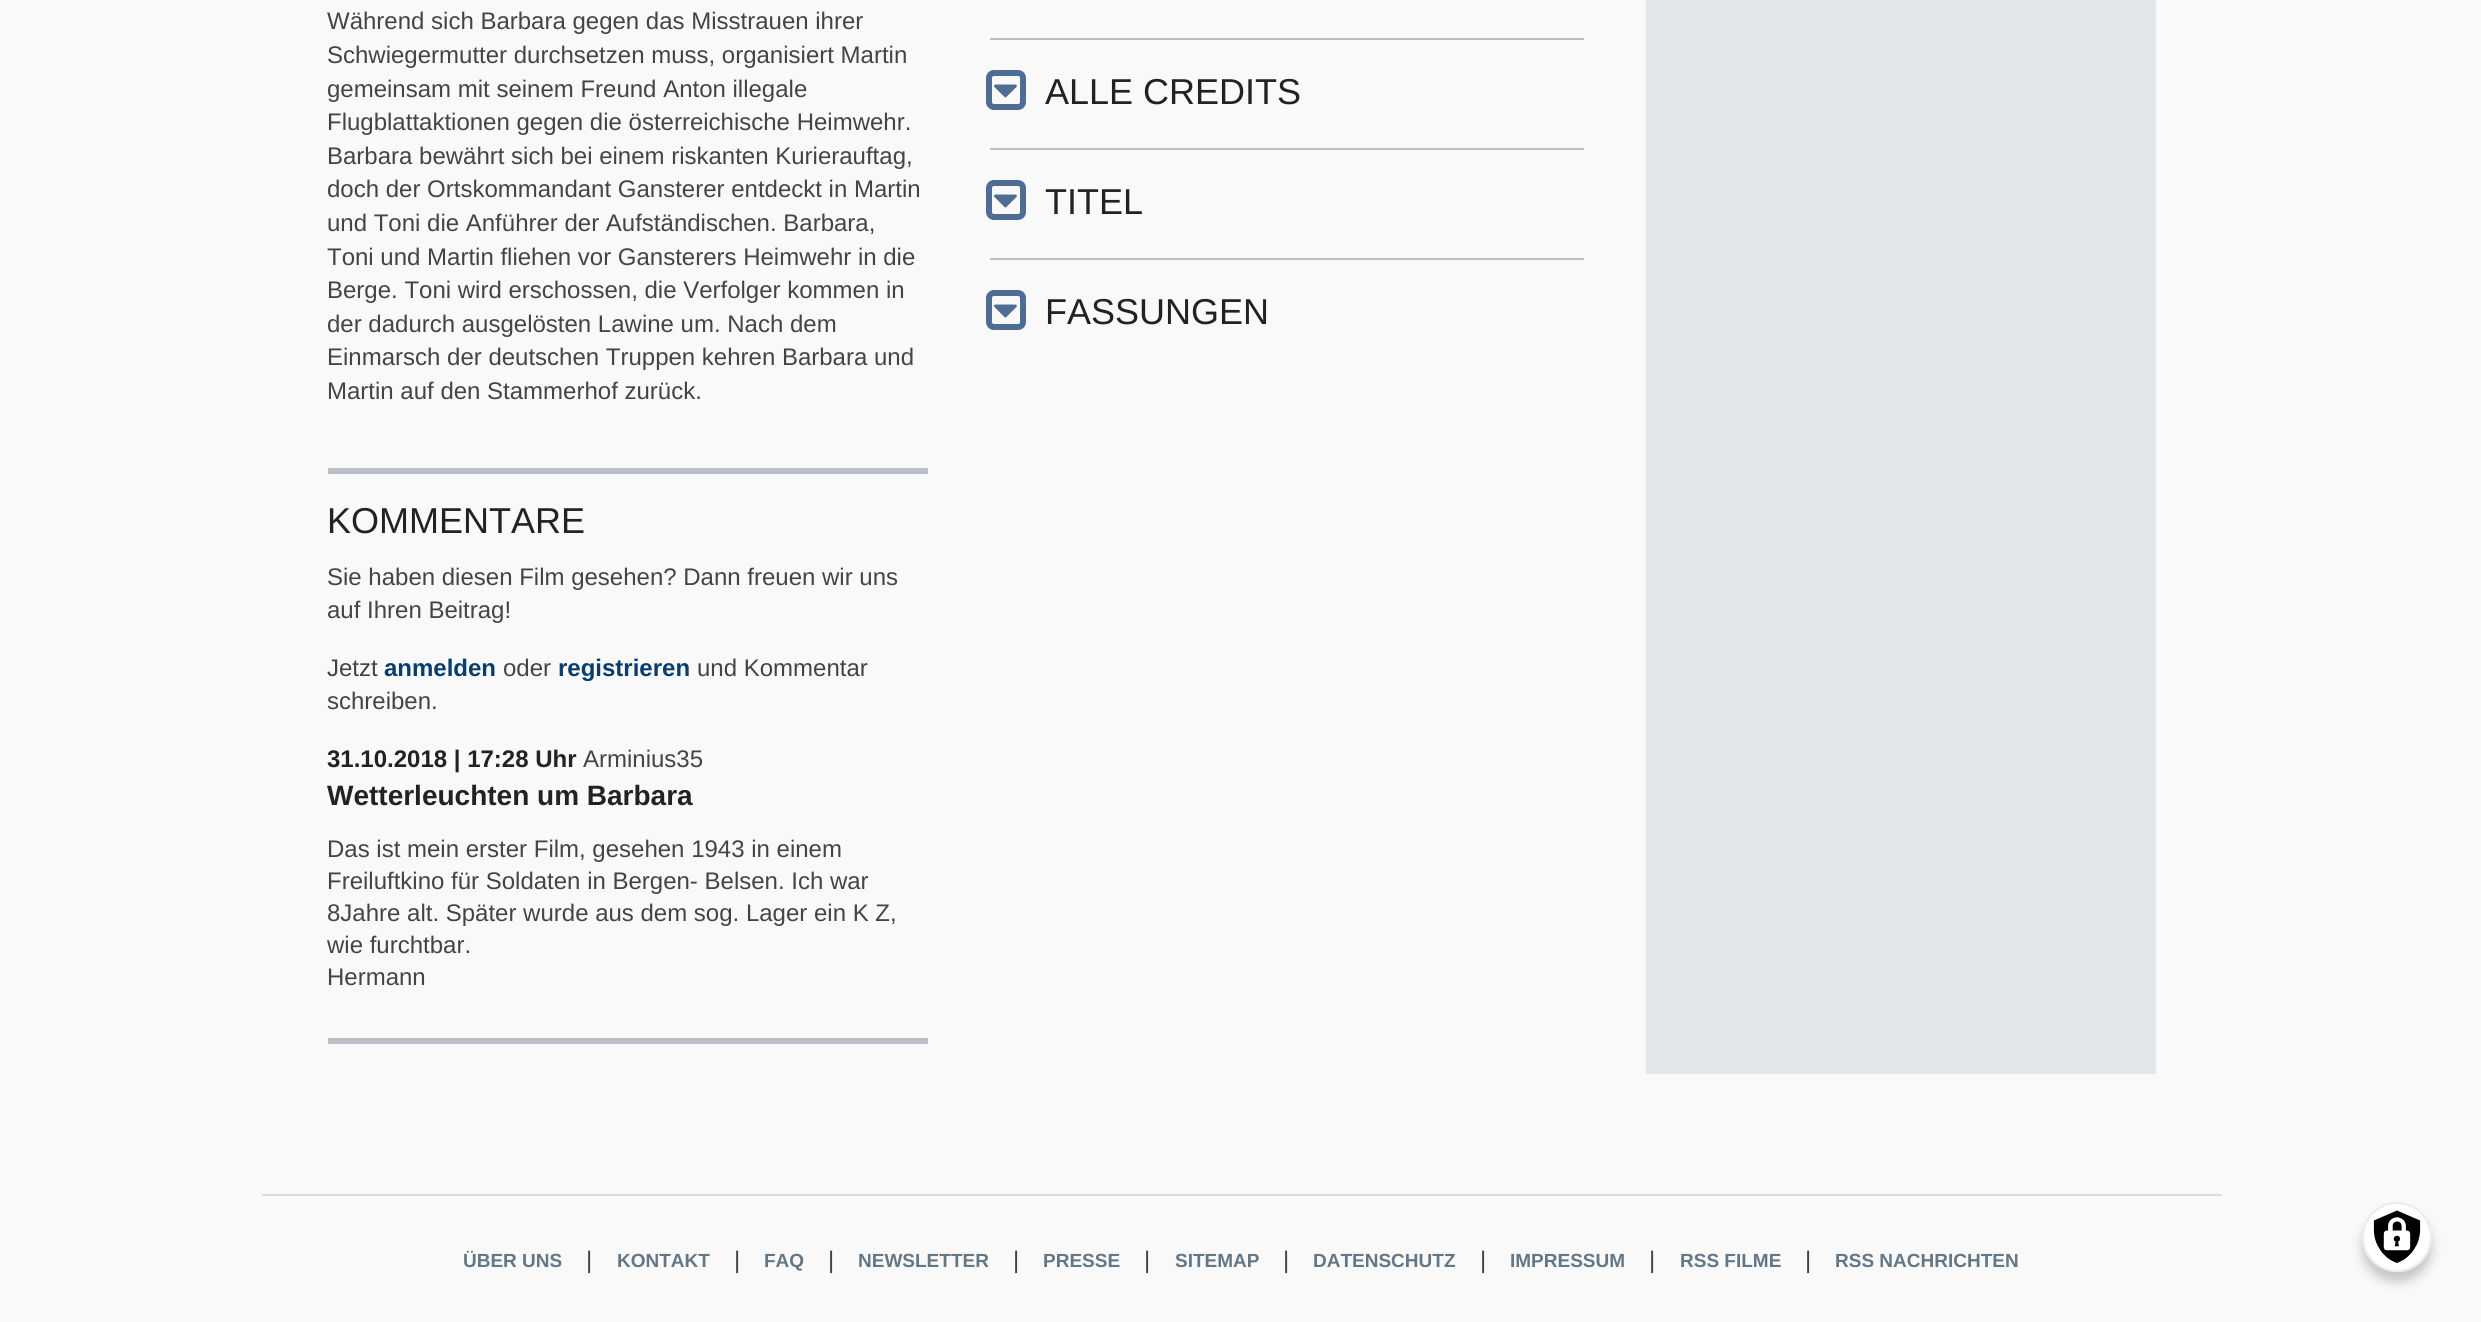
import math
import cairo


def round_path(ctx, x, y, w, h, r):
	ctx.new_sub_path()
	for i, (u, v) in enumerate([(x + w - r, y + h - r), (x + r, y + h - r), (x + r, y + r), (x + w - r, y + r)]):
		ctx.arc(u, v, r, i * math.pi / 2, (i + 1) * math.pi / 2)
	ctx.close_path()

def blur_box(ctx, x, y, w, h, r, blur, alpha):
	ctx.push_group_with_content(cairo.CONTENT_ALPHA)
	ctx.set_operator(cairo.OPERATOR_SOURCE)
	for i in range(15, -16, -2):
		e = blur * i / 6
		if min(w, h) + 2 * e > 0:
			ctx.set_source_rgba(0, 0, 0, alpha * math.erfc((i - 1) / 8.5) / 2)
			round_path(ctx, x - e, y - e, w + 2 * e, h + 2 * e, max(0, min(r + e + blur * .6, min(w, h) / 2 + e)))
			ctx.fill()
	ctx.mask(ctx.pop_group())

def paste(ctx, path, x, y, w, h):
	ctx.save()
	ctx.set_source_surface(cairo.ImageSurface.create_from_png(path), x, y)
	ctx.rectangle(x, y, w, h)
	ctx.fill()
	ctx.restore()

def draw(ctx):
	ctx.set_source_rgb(0.976, 0.976, 0.976)
	ctx.paint()
	ctx.select_font_face('Liberation Sans')
	ctx.set_font_size(24)
	ctx.set_source_rgb(0.267, 0.267, 0.267)
	for x, y, s in [
		(327, 29, 'Während sich Barbara gegen das Misstrauen ihrer'),
		(327, 63, 'Schwiegermutter durchsetzen muss, organisiert Martin'),
		(327, 97, 'gemeinsam mit seinem Freund Anton illegale'),
		(327, 130, 'Flugblattaktionen gegen die österreichische Heimwehr.'),
		(327, 164, 'Barbara bewährt sich bei einem riskanten Kurierauftag,'),
		(327, 197, 'doch der Ortskommandant Gansterer entdeckt in Martin'),
		(327, 231, 'und Toni die Anführer der Aufständischen. Barbara,'),
		(327, 265, 'Toni und Martin fliehen vor Gansterers Heimwehr in die'),
		(327, 298, 'Berge. Toni wird erschossen, die Verfolger kommen in'),
		(327, 332, 'der dadurch ausgelösten Lawine um. Nach dem'),
		(327, 365, 'Einmarsch der deutschen Truppen kehren Barbara und'),
		(327, 399, 'Martin auf den Stammerhof zurück.'),
	]:
		ctx.move_to(x, y)
		ctx.show_text(s)
	ctx.set_source_rgb(0.725, 0.753, 0.78)
	ctx.rectangle(328, 468, 600, 6)
	ctx.fill()
	ctx.set_font_size(36)
	ctx.set_source_rgb(0.133, 0.133, 0.133)
	ctx.move_to(327, 533)
	ctx.show_text('KOMMENTARE')
	ctx.set_font_size(24)
	ctx.set_source_rgb(0.267, 0.267, 0.267)
	for x, y, s in [
		(327, 585, 'Sie haben diesen Film gesehen? Dann freuen wir uns'),
		(327, 618, 'auf Ihren Beitrag!'),
		(327, 676, 'Jetzt'),
	]:
		ctx.move_to(x, y)
		ctx.show_text(s)
	ctx.select_font_face('Liberation Sans', cairo.FONT_SLANT_NORMAL, cairo.FONT_WEIGHT_BOLD)
	ctx.set_source_rgb(0.035, 0.243, 0.427)
	ctx.move_to(384, 676)
	ctx.show_text('anmelden')
	ctx.select_font_face('Liberation Sans')
	ctx.set_source_rgb(0.267, 0.267, 0.267)
	ctx.move_to(503, 676)
	ctx.show_text('oder')
	ctx.select_font_face('Liberation Sans', cairo.FONT_SLANT_NORMAL, cairo.FONT_WEIGHT_BOLD)
	ctx.set_source_rgb(0.035, 0.243, 0.427)
	ctx.move_to(558, 676)
	ctx.show_text('registrieren')
	ctx.select_font_face('Liberation Sans')
	ctx.set_source_rgb(0.267, 0.267, 0.267)
	ctx.move_to(697, 676)
	ctx.show_text('und Kommentar')
	ctx.move_to(327, 709)
	ctx.show_text('schreiben.')
	ctx.set_source_rgb(0.725, 0.753, 0.78)
	ctx.rectangle(328, 1038, 600, 6)
	ctx.fill()
	ctx.select_font_face('Liberation Sans', cairo.FONT_SLANT_NORMAL, cairo.FONT_WEIGHT_BOLD)
	ctx.set_source_rgb(0.133, 0.133, 0.133)
	ctx.move_to(327, 767)
	ctx.show_text('31.10.2018 | 17:28 Uhr')
	ctx.select_font_face('Liberation Sans')
	ctx.set_source_rgb(0.267, 0.267, 0.267)
	ctx.move_to(583, 767)
	ctx.show_text('Arminius35')
	ctx.select_font_face('Liberation Sans', cairo.FONT_SLANT_NORMAL, cairo.FONT_WEIGHT_BOLD)
	ctx.set_font_size(28)
	ctx.set_source_rgb(0.133, 0.133, 0.133)
	ctx.move_to(327, 805)
	ctx.show_text('Wetterleuchten um Barbara')
	ctx.select_font_face('Liberation Sans')
	ctx.set_font_size(24)
	ctx.set_source_rgb(0.267, 0.267, 0.267)
	for x, y, s in [
		(327, 857, 'Das ist mein erster Film, gesehen 1943 in einem'),
		(327, 889, 'Freiluftkino für Soldaten in Bergen- Belsen. Ich war'),
		(327, 921, '8Jahre alt. Später wurde aus dem sog. Lager ein K Z,'),
		(327, 953, 'wie furchtbar.'),
		(327, 985, 'Hermann'),
	]:
		ctx.move_to(x, y)
		ctx.show_text(s)
	ctx.set_source_rgb(0.725, 0.753, 0.78)
	ctx.rectangle(990, 38, 594, 2)
	ctx.fill()
	round_path(ctx, 989, 73, 34, 34, 5)
	ctx.set_source_rgb(0.306, 0.427, 0.584)
	ctx.set_line_width(6)
	ctx.stroke()
	paste(ctx, 'media/1.png', 994, 84, 23, 14)
	ctx.set_font_size(36)
	ctx.set_source_rgb(0.133, 0.133, 0.133)
	ctx.move_to(1045, 104)
	ctx.show_text('ALLE CREDITS')
	ctx.set_source_rgb(0.725, 0.753, 0.78)
	ctx.rectangle(990, 148, 594, 2)
	ctx.fill()
	round_path(ctx, 989, 183, 34, 34, 5)
	ctx.set_source_rgb(0.306, 0.427, 0.584)
	ctx.stroke()
	paste(ctx, 'media/1.png', 994, 194, 23, 14)
	ctx.set_source_rgb(0.133, 0.133, 0.133)
	ctx.move_to(1045, 214)
	ctx.show_text('TITEL')
	ctx.set_source_rgb(0.725, 0.753, 0.78)
	ctx.rectangle(990, 258, 594, 2)
	ctx.fill()
	round_path(ctx, 989, 293, 34, 34, 5)
	ctx.set_source_rgb(0.306, 0.427, 0.584)
	ctx.stroke()
	paste(ctx, 'media/1.png', 994, 304, 23, 14)
	ctx.set_source_rgb(0.133, 0.133, 0.133)
	ctx.move_to(1045, 324)
	ctx.show_text('FASSUNGEN')
	ctx.set_source_rgb(0.886, 0.902, 0.914)
	ctx.rectangle(1646, 0, 510, 1074)
	ctx.fill()
	ctx.set_source_rgb(0.851, 0.863, 0.878)
	ctx.rectangle(262, 1194, 1960, 2)
	ctx.fill()
	ctx.select_font_face('Liberation Sans', cairo.FONT_SLANT_NORMAL, cairo.FONT_WEIGHT_BOLD)
	ctx.set_font_size(19)
	ctx.set_source_rgb(0.392, 0.467, 0.525)
	ctx.move_to(463, 1267)
	ctx.show_text('ÜBER UNS')
	ctx.select_font_face('Liberation Sans')
	ctx.set_font_size(24)
	ctx.set_source_rgb(0.267, 0.267, 0.267)
	ctx.move_to(586, 1268)
	ctx.show_text('|')
	ctx.select_font_face('Liberation Sans', cairo.FONT_SLANT_NORMAL, cairo.FONT_WEIGHT_BOLD)
	ctx.set_font_size(19)
	ctx.set_source_rgb(0.392, 0.467, 0.525)
	ctx.move_to(617, 1267)
	ctx.show_text('KONTAKT')
	ctx.select_font_face('Liberation Sans')
	ctx.set_font_size(24)
	ctx.set_source_rgb(0.267, 0.267, 0.267)
	ctx.move_to(734, 1268)
	ctx.show_text('|')
	ctx.select_font_face('Liberation Sans', cairo.FONT_SLANT_NORMAL, cairo.FONT_WEIGHT_BOLD)
	ctx.set_font_size(19)
	ctx.set_source_rgb(0.392, 0.467, 0.525)
	ctx.move_to(764, 1267)
	ctx.show_text('FAQ')
	ctx.select_font_face('Liberation Sans')
	ctx.set_font_size(24)
	ctx.set_source_rgb(0.267, 0.267, 0.267)
	ctx.move_to(828, 1268)
	ctx.show_text('|')
	ctx.select_font_face('Liberation Sans', cairo.FONT_SLANT_NORMAL, cairo.FONT_WEIGHT_BOLD)
	ctx.set_font_size(19)
	ctx.set_source_rgb(0.392, 0.467, 0.525)
	ctx.move_to(858, 1267)
	ctx.show_text('NEWSLETTER')
	ctx.select_font_face('Liberation Sans')
	ctx.set_font_size(24)
	ctx.set_source_rgb(0.267, 0.267, 0.267)
	ctx.move_to(1013, 1268)
	ctx.show_text('|')
	ctx.select_font_face('Liberation Sans', cairo.FONT_SLANT_NORMAL, cairo.FONT_WEIGHT_BOLD)
	ctx.set_font_size(19)
	ctx.set_source_rgb(0.392, 0.467, 0.525)
	ctx.move_to(1043, 1267)
	ctx.show_text('PRESSE')
	ctx.select_font_face('Liberation Sans')
	ctx.set_font_size(24)
	ctx.set_source_rgb(0.267, 0.267, 0.267)
	ctx.move_to(1144, 1268)
	ctx.show_text('|')
	ctx.select_font_face('Liberation Sans', cairo.FONT_SLANT_NORMAL, cairo.FONT_WEIGHT_BOLD)
	ctx.set_font_size(19)
	ctx.set_source_rgb(0.392, 0.467, 0.525)
	ctx.move_to(1175, 1267)
	ctx.show_text('SITEMAP')
	ctx.select_font_face('Liberation Sans')
	ctx.set_font_size(24)
	ctx.set_source_rgb(0.267, 0.267, 0.267)
	ctx.move_to(1283, 1268)
	ctx.show_text('|')
	ctx.select_font_face('Liberation Sans', cairo.FONT_SLANT_NORMAL, cairo.FONT_WEIGHT_BOLD)
	ctx.set_font_size(19)
	ctx.set_source_rgb(0.392, 0.467, 0.525)
	ctx.move_to(1313, 1267)
	ctx.show_text('DATENSCHUTZ')
	ctx.select_font_face('Liberation Sans')
	ctx.set_font_size(24)
	ctx.set_source_rgb(0.267, 0.267, 0.267)
	ctx.move_to(1480, 1268)
	ctx.show_text('|')
	ctx.select_font_face('Liberation Sans', cairo.FONT_SLANT_NORMAL, cairo.FONT_WEIGHT_BOLD)
	ctx.set_font_size(19)
	ctx.set_source_rgb(0.392, 0.467, 0.525)
	ctx.move_to(1510, 1267)
	ctx.show_text('IMPRESSUM')
	ctx.select_font_face('Liberation Sans')
	ctx.set_font_size(24)
	ctx.set_source_rgb(0.267, 0.267, 0.267)
	ctx.move_to(1649, 1268)
	ctx.show_text('|')
	ctx.select_font_face('Liberation Sans', cairo.FONT_SLANT_NORMAL, cairo.FONT_WEIGHT_BOLD)
	ctx.set_font_size(19)
	ctx.set_source_rgb(0.392, 0.467, 0.525)
	ctx.move_to(1680, 1267)
	ctx.show_text('RSS FILME')
	ctx.select_font_face('Liberation Sans')
	ctx.set_font_size(24)
	ctx.set_source_rgb(0.267, 0.267, 0.267)
	ctx.move_to(1805, 1268)
	ctx.show_text('|')
	ctx.select_font_face('Liberation Sans', cairo.FONT_SLANT_NORMAL, cairo.FONT_WEIGHT_BOLD)
	ctx.set_font_size(19)
	ctx.set_source_rgb(0.392, 0.467, 0.525)
	ctx.move_to(1835, 1267)
	ctx.show_text('RSS NACHRICHTEN')
	ctx.set_source_rgb(0, 0, 0)
	blur_box(ctx, 2362, 1212, 70, 70, 35, 5, 0.2)
	ctx.set_source_rgb(1, 1, 1)
	ctx.arc(2397, 1237, 35, 0, 2 * math.pi)
	ctx.fill()
	paste(ctx, 'media/2.png', 2373, 1210, 48, 53)
	ctx.arc(2397, 1237, 34, 0, 2 * math.pi)
	ctx.set_source_rgb(0.918, 0.918, 0.918)
	ctx.set_line_width(2)
	ctx.stroke()


surface = cairo.ImageSurface(cairo.FORMAT_RGB24, 2481, 1322)
ctx = cairo.Context(surface)
options = cairo.FontOptions()
options.set_hint_metrics(cairo.HINT_METRICS_OFF)
options.set_hint_style(cairo.HINT_STYLE_NONE)
ctx.set_font_options(options)
ctx.set_miter_limit(4)
draw(ctx)
surface.write_to_png('image.png')
